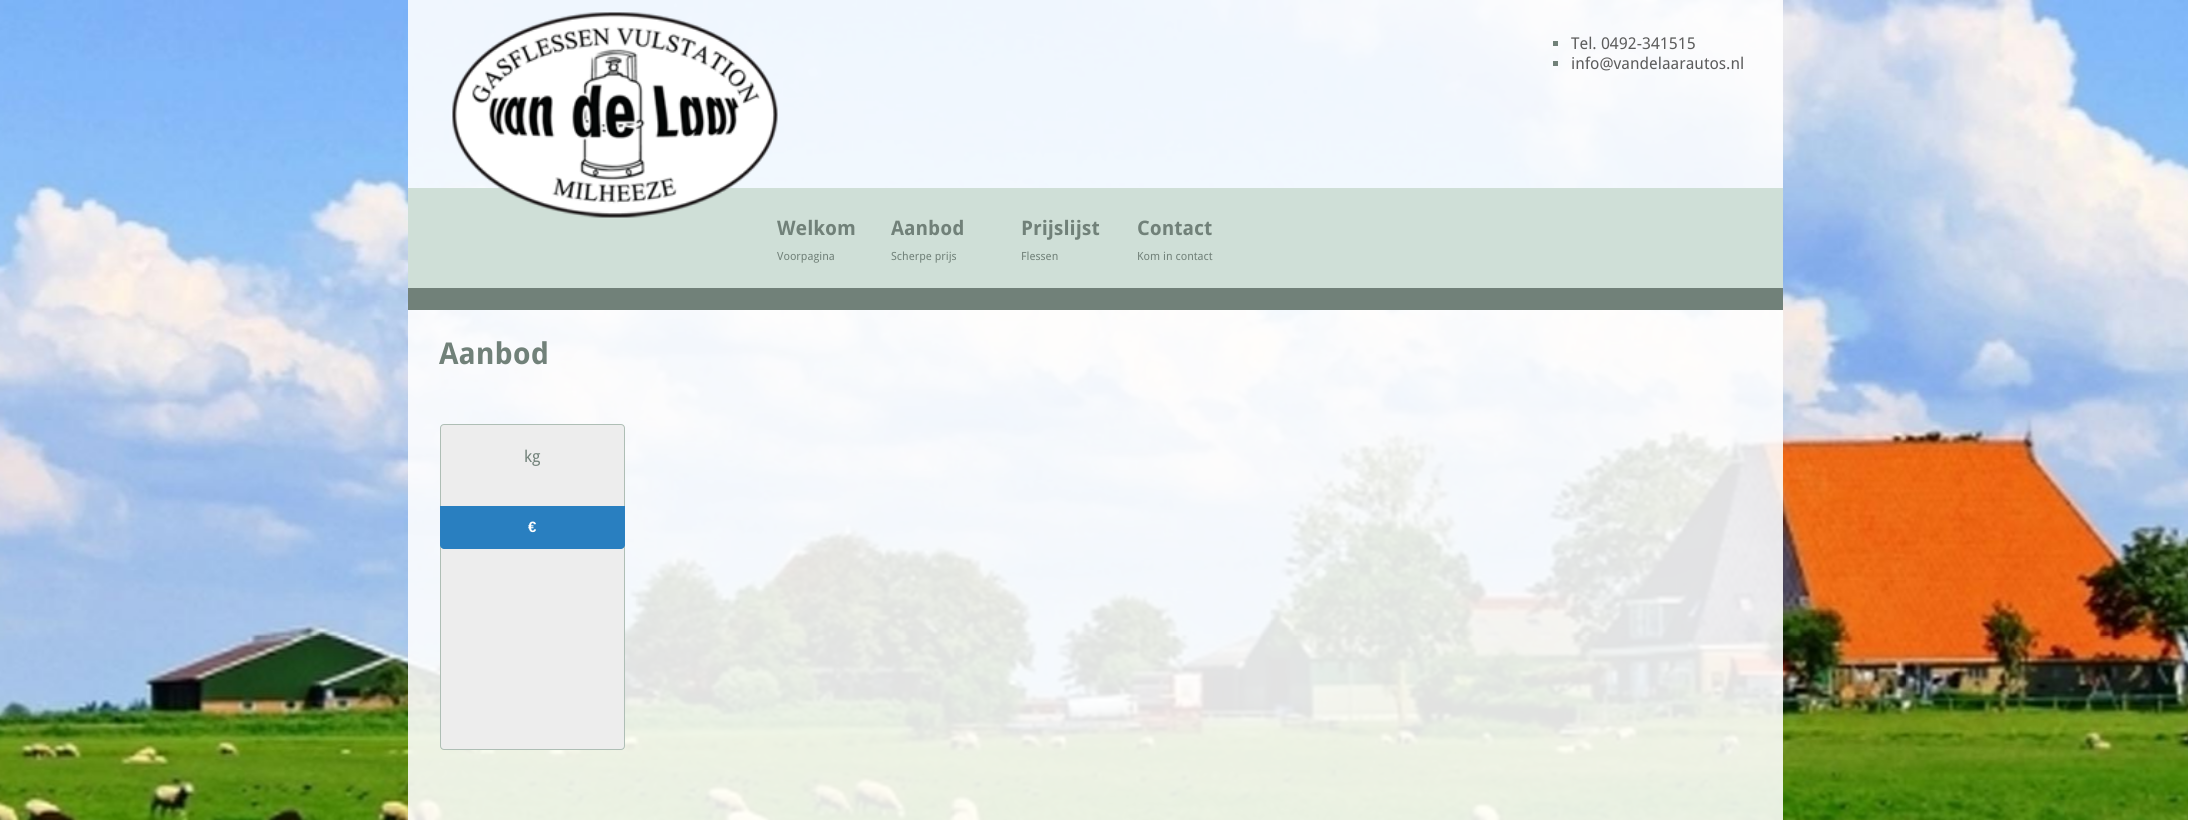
import math
import cairo


def round_path(ctx, x, y, w, h, r):
	ctx.new_sub_path()
	for i, (u, v) in enumerate([(x + w - r, y + h - r), (x + r, y + h - r), (x + r, y + r), (x + w - r, y + r)]):
		ctx.arc(u, v, r, i * math.pi / 2, (i + 1) * math.pi / 2)
	ctx.close_path()

def paste(ctx, path, x, y, w, h):
	ctx.save()
	ctx.set_source_surface(cairo.ImageSurface.create_from_png(path), x, y)
	ctx.rectangle(x, y, w, h)
	ctx.fill()
	ctx.restore()

def draw(ctx):
	ctx.set_source_rgb(1, 1, 1)
	ctx.paint()
	paste(ctx, 'media/1.png', 0, 0, 2188, 820)
	ctx.set_source_rgba(1, 1, 1, 0.88)
	ctx.rectangle(408, 0, 1375, 188)
	ctx.fill()
	ctx.set_source_rgb(0.812, 0.875, 0.843)
	ctx.rectangle(408, 188, 1375, 100)
	ctx.fill()
	paste(ctx, 'media/2.png', 452, 12, 326, 206)
	ctx.set_source_rgb(0.443, 0.506, 0.475)
	ctx.rectangle(1553, 41, 5, 5)
	ctx.fill()
	ctx.select_font_face('Droid Sans')
	ctx.set_font_size(16.25)
	ctx.set_source_rgb(0.365, 0.365, 0.365)
	ctx.move_to(1571, 49)
	ctx.show_text('Tel. 0492-341515')
	ctx.set_source_rgb(0.443, 0.506, 0.475)
	ctx.rectangle(1553, 61, 5, 5)
	ctx.fill()
	ctx.set_source_rgb(0.365, 0.365, 0.365)
	ctx.move_to(1571, 69)
	ctx.show_text('info@vandelaarautos.nl')
	ctx.select_font_face('Droid Sans', cairo.FONT_SLANT_NORMAL, cairo.FONT_WEIGHT_BOLD)
	ctx.set_font_size(20)
	ctx.set_source_rgb(0.443, 0.506, 0.475)
	ctx.move_to(777, 235)
	ctx.show_text('Welkom')
	ctx.select_font_face('Droid Sans')
	ctx.set_font_size(11.25)
	ctx.move_to(777, 260)
	ctx.show_text('Voorpagina')
	ctx.select_font_face('Droid Sans', cairo.FONT_SLANT_NORMAL, cairo.FONT_WEIGHT_BOLD)
	ctx.set_font_size(20)
	ctx.move_to(891, 235)
	ctx.show_text('Aanbod')
	ctx.select_font_face('Droid Sans')
	ctx.set_font_size(11.25)
	ctx.move_to(891, 260)
	ctx.show_text('Scherpe prijs')
	ctx.select_font_face('Droid Sans', cairo.FONT_SLANT_NORMAL, cairo.FONT_WEIGHT_BOLD)
	ctx.set_font_size(20)
	ctx.move_to(1021, 235)
	ctx.show_text('Prijslijst')
	ctx.select_font_face('Droid Sans')
	ctx.set_font_size(11.25)
	ctx.move_to(1021, 260)
	ctx.show_text('Flessen')
	ctx.select_font_face('Droid Sans', cairo.FONT_SLANT_NORMAL, cairo.FONT_WEIGHT_BOLD)
	ctx.set_font_size(20)
	ctx.move_to(1137, 235)
	ctx.show_text('Contact')
	ctx.select_font_face('Droid Sans')
	ctx.set_font_size(11.25)
	ctx.move_to(1137, 260)
	ctx.show_text('Kom in contact')
	ctx.rectangle(408, 288, 1375, 22)
	ctx.fill()
	ctx.set_source_rgba(1, 1, 1, 0.88)
	ctx.rectangle(408, 310, 1375, 510)
	ctx.fill()
	ctx.select_font_face('Droid Sans', cairo.FONT_SLANT_NORMAL, cairo.FONT_WEIGHT_BOLD)
	ctx.set_font_size(30)
	ctx.set_source_rgb(0.443, 0.506, 0.475)
	ctx.move_to(439, 364)
	ctx.show_text('Aanbod')
	ctx.set_source_rgb(0.929, 0.929, 0.929)
	round_path(ctx, 440.5, 424.5, 184, 325, 3.5)
	ctx.fill_preserve()
	ctx.set_source_rgb(0.682, 0.745, 0.71)
	ctx.set_line_width(1)
	ctx.stroke()
	ctx.select_font_face('Droid Sans')
	ctx.set_font_size(16.25)
	ctx.set_source_rgb(0.443, 0.506, 0.475)
	ctx.move_to(524, 462)
	ctx.show_text('kg')
	ctx.set_source_rgb(0.161, 0.498, 0.753)
	ctx.new_path()
	ctx.move_to(440, 506)
	ctx.line_to(625, 506)
	ctx.line_to(625, 545)
	ctx.curve_to(625, 547, 623, 549, 621, 549)
	ctx.line_to(444, 549)
	ctx.curve_to(442, 549, 440, 547, 440, 545)
	ctx.close_path()
	ctx.fill()
	ctx.select_font_face('Liberation Sans', cairo.FONT_SLANT_NORMAL, cairo.FONT_WEIGHT_BOLD)
	ctx.set_font_size(15)
	ctx.set_source_rgb(1, 1, 1)
	ctx.move_to(528, 532)
	ctx.show_text('€')


surface = cairo.ImageSurface(cairo.FORMAT_RGB24, 2188, 820)
ctx = cairo.Context(surface)
options = cairo.FontOptions()
options.set_hint_metrics(cairo.HINT_METRICS_OFF)
options.set_hint_style(cairo.HINT_STYLE_NONE)
ctx.set_font_options(options)
ctx.set_miter_limit(4)
draw(ctx)
surface.write_to_png('image.png')
